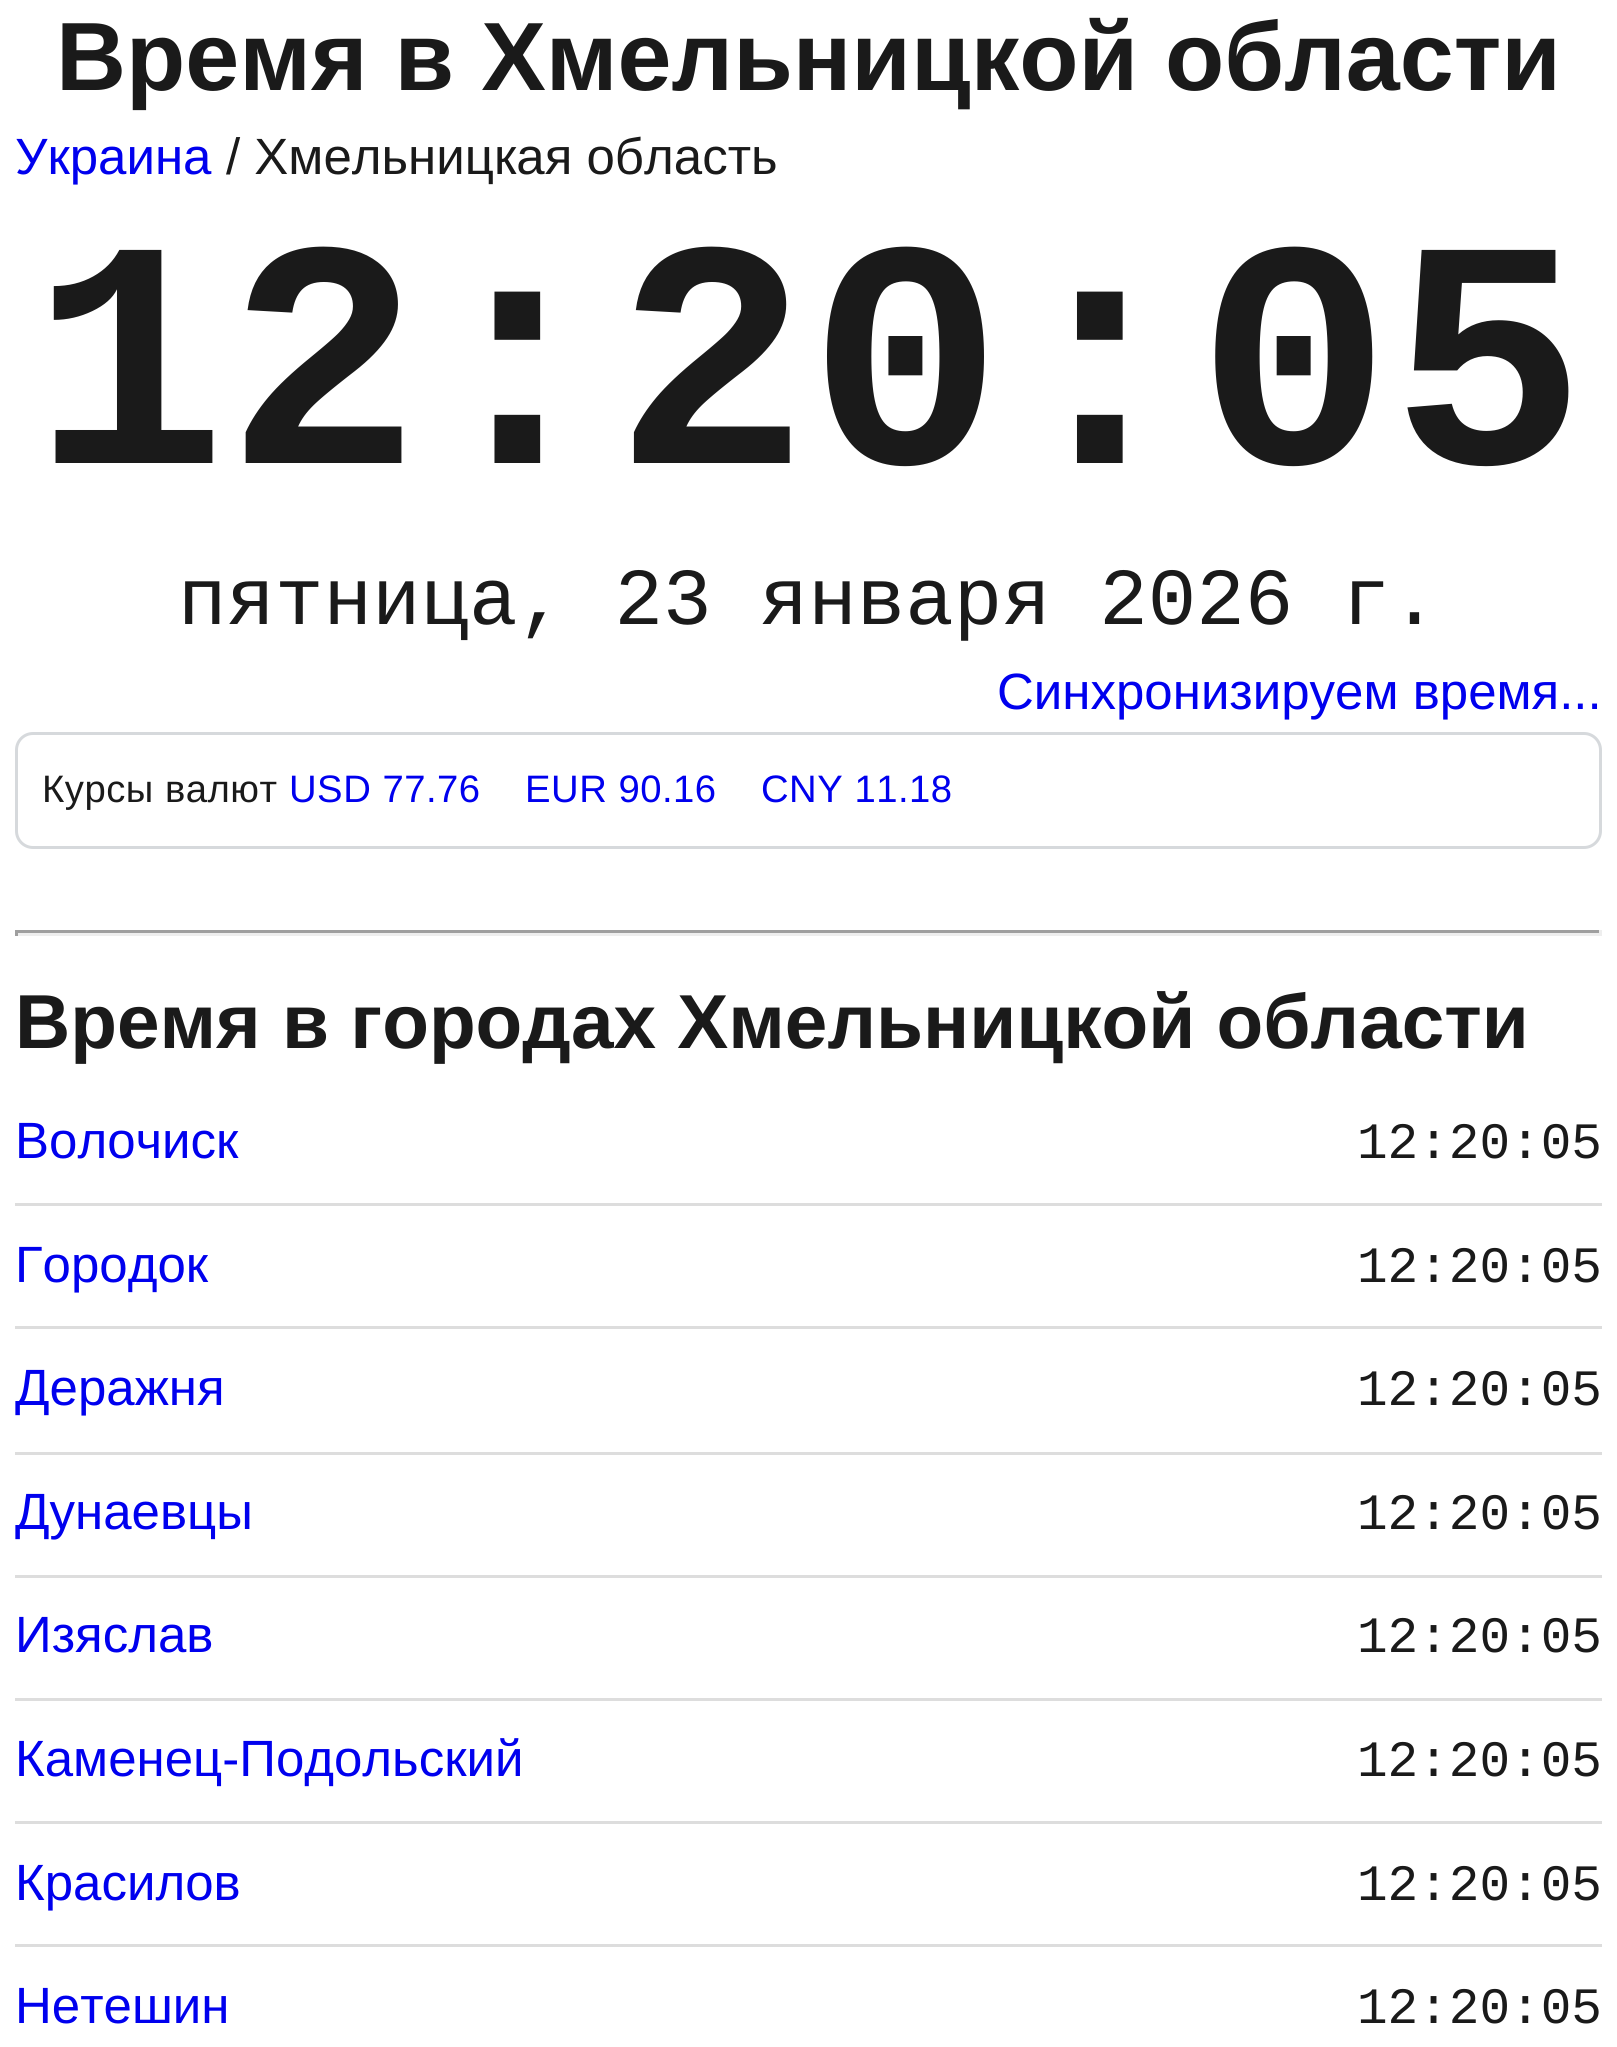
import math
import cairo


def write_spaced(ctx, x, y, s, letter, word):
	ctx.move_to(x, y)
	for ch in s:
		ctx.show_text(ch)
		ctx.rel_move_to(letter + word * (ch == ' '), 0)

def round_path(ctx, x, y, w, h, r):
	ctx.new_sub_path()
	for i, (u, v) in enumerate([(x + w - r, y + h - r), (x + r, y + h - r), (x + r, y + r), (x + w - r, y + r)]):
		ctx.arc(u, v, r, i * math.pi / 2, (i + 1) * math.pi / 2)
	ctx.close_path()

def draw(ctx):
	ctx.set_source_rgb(1, 1, 1)
	ctx.paint()
	ctx.select_font_face('Liberation Sans', cairo.FONT_SLANT_NORMAL, cairo.FONT_WEIGHT_BOLD)
	ctx.set_font_size(97)
	ctx.set_source_rgb(0.102, 0.102, 0.102)
	ctx.move_to(56, 90)
	ctx.show_text('Время в Хмельницкой области')
	ctx.select_font_face('Liberation Sans')
	ctx.set_font_size(51)
	ctx.set_source_rgb(0, 0, 0.933)
	ctx.move_to(15, 174)
	ctx.show_text('Украина')
	ctx.set_source_rgb(0.102, 0.102, 0.102)
	ctx.move_to(226, 174)
	ctx.show_text('/ Хмельницкая область')
	ctx.select_font_face('Liberation Mono', cairo.FONT_SLANT_NORMAL, cairo.FONT_WEIGHT_BOLD)
	ctx.set_font_size(323.5)
	ctx.move_to(32, 463)
	ctx.show_text('12:20:05')
	ctx.select_font_face('Liberation Mono')
	ctx.set_font_size(80.8)
	ctx.move_to(178, 624)
	ctx.show_text('пятница, 23 января 2026 г.')
	ctx.select_font_face('Liberation Sans')
	ctx.set_font_size(51)
	ctx.set_source_rgb(0, 0, 0.933)
	ctx.move_to(997, 709)
	ctx.show_text('Синхронизируем время...')
	round_path(ctx, 16.5, 733.5, 1584, 114, 16.5)
	ctx.set_source_rgb(0.839, 0.851, 0.863)
	ctx.set_line_width(3)
	ctx.stroke()
	ctx.set_font_size(38.25)
	ctx.set_source_rgb(0.102, 0.102, 0.102)
	write_spaced(ctx, 42, 802, 'Курсы валют', 0.5, 0)
	ctx.set_source_rgb(0, 0, 0.933)
	for x, y, s in [
		(289, 802, 'USD 77.76'),
		(525, 802, 'EUR 90.16'),
		(761, 802, 'CNY 11.18'),
	]:
		write_spaced(ctx, x, y, s, 0.5, 0)
	ctx.set_source_rgb(0.624, 0.624, 0.624)
	ctx.rectangle(15, 930, 1587, 3)
	ctx.fill()
	ctx.set_source_rgb(0.933, 0.933, 0.933)
	ctx.rectangle(1599, 930, 3, 6)
	ctx.rectangle(15, 933, 1587, 3)
	ctx.fill()
	ctx.set_source_rgb(0.624, 0.624, 0.624)
	ctx.rectangle(15, 930, 3, 6)
	ctx.fill()
	ctx.select_font_face('Liberation Sans', cairo.FONT_SLANT_NORMAL, cairo.FONT_WEIGHT_BOLD)
	ctx.set_font_size(76.5)
	ctx.set_source_rgb(0.102, 0.102, 0.102)
	ctx.move_to(15, 1048)
	ctx.show_text('Время в городах Хмельницкой области')
	ctx.set_source_rgb(0.867, 0.867, 0.867)
	ctx.rectangle(15, 1203, 1587, 3)
	ctx.fill()
	ctx.select_font_face('Liberation Sans')
	ctx.set_font_size(51)
	ctx.set_source_rgb(0, 0, 0.933)
	ctx.move_to(15, 1158)
	ctx.show_text('Волочиск')
	ctx.select_font_face('Liberation Mono')
	ctx.set_source_rgb(0.102, 0.102, 0.102)
	ctx.move_to(1357, 1158)
	ctx.show_text('12:20:05')
	ctx.set_source_rgb(0.867, 0.867, 0.867)
	ctx.rectangle(15, 1326, 1587, 3)
	ctx.fill()
	ctx.select_font_face('Liberation Sans')
	ctx.set_source_rgb(0, 0, 0.933)
	ctx.move_to(15, 1282)
	ctx.show_text('Городок')
	ctx.select_font_face('Liberation Mono')
	ctx.set_source_rgb(0.102, 0.102, 0.102)
	ctx.move_to(1357, 1282)
	ctx.show_text('12:20:05')
	ctx.set_source_rgb(0.867, 0.867, 0.867)
	ctx.rectangle(15, 1452, 1587, 3)
	ctx.fill()
	ctx.select_font_face('Liberation Sans')
	ctx.set_source_rgb(0, 0, 0.933)
	ctx.move_to(15, 1405)
	ctx.show_text('Деражня')
	ctx.select_font_face('Liberation Mono')
	ctx.set_source_rgb(0.102, 0.102, 0.102)
	ctx.move_to(1357, 1405)
	ctx.show_text('12:20:05')
	ctx.set_source_rgb(0.867, 0.867, 0.867)
	ctx.rectangle(15, 1575, 1587, 3)
	ctx.fill()
	ctx.select_font_face('Liberation Sans')
	ctx.set_source_rgb(0, 0, 0.933)
	ctx.move_to(15, 1529)
	ctx.show_text('Дунаевцы')
	ctx.select_font_face('Liberation Mono')
	ctx.set_source_rgb(0.102, 0.102, 0.102)
	ctx.move_to(1357, 1529)
	ctx.show_text('12:20:05')
	ctx.set_source_rgb(0.867, 0.867, 0.867)
	ctx.rectangle(15, 1698, 1587, 3)
	ctx.fill()
	ctx.select_font_face('Liberation Sans')
	ctx.set_source_rgb(0, 0, 0.933)
	ctx.move_to(15, 1652)
	ctx.show_text('Изяслав')
	ctx.select_font_face('Liberation Mono')
	ctx.set_source_rgb(0.102, 0.102, 0.102)
	ctx.move_to(1357, 1652)
	ctx.show_text('12:20:05')
	ctx.set_source_rgb(0.867, 0.867, 0.867)
	ctx.rectangle(15, 1821, 1587, 3)
	ctx.fill()
	ctx.select_font_face('Liberation Sans')
	ctx.set_source_rgb(0, 0, 0.933)
	ctx.move_to(15, 1776)
	ctx.show_text('Каменец-Подольский')
	ctx.select_font_face('Liberation Mono')
	ctx.set_source_rgb(0.102, 0.102, 0.102)
	ctx.move_to(1357, 1776)
	ctx.show_text('12:20:05')
	ctx.set_source_rgb(0.867, 0.867, 0.867)
	ctx.rectangle(15, 1944, 1587, 3)
	ctx.fill()
	ctx.select_font_face('Liberation Sans')
	ctx.set_source_rgb(0, 0, 0.933)
	ctx.move_to(15, 1900)
	ctx.show_text('Красилов')
	ctx.select_font_face('Liberation Mono')
	ctx.set_source_rgb(0.102, 0.102, 0.102)
	ctx.move_to(1357, 1900)
	ctx.show_text('12:20:05')
	ctx.select_font_face('Liberation Sans')
	ctx.set_source_rgb(0, 0, 0.933)
	ctx.move_to(15, 2023)
	ctx.show_text('Нетешин')
	ctx.select_font_face('Liberation Mono')
	ctx.set_source_rgb(0.102, 0.102, 0.102)
	ctx.move_to(1357, 2023)
	ctx.show_text('12:20:05')


surface = cairo.ImageSurface(cairo.FORMAT_RGB24, 1617, 2047)
ctx = cairo.Context(surface)
options = cairo.FontOptions()
options.set_hint_metrics(cairo.HINT_METRICS_OFF)
options.set_hint_style(cairo.HINT_STYLE_NONE)
ctx.set_font_options(options)
ctx.set_miter_limit(4)
draw(ctx)
surface.write_to_png('image.png')
